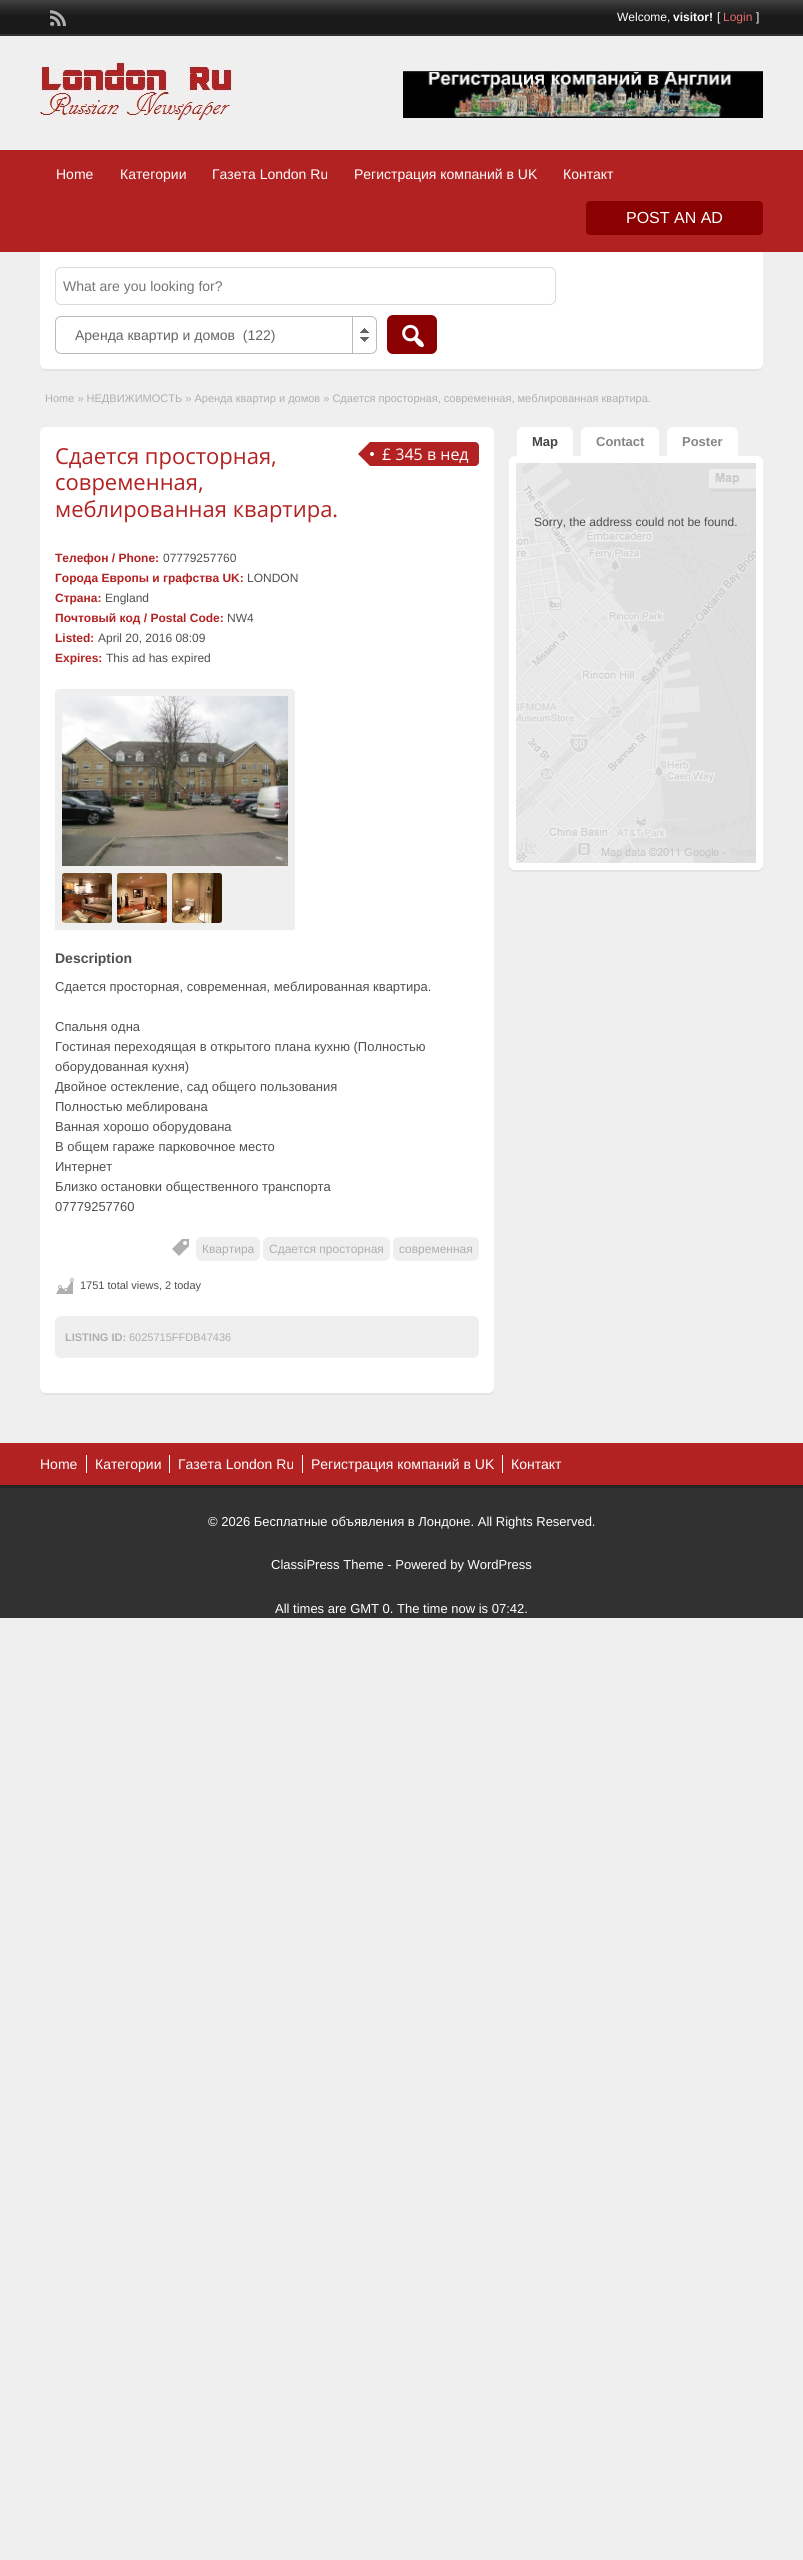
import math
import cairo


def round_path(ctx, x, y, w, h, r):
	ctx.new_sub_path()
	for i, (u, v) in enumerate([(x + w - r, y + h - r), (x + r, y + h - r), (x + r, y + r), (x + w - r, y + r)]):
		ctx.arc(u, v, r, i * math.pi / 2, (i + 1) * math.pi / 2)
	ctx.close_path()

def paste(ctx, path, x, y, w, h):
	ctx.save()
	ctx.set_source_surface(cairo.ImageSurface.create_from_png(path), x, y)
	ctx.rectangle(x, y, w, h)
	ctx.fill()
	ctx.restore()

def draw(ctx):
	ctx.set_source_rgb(0.937, 0.937, 0.937)
	ctx.paint()
	ctx.set_source_rgb(0.102, 0.102, 0.102)
	ctx.rectangle(0, 15, 803, 19)
	ctx.fill()
	paste(ctx, 'media/1.png', 0, 0, 803, 15)
	ctx.set_source_rgb(0.196, 0.196, 0.196)
	ctx.rectangle(0, 34, 803, 2)
	ctx.fill()
	paste(ctx, 'media/2.png', 50, 10, 16, 16)
	ctx.select_font_face('Liberation Sans')
	ctx.set_font_size(12)
	ctx.set_source_rgb(1, 1, 1)
	ctx.move_to(617, 21)
	ctx.show_text('Welcome,')
	ctx.select_font_face('Liberation Sans', cairo.FONT_SLANT_NORMAL, cairo.FONT_WEIGHT_BOLD)
	ctx.move_to(673, 21)
	ctx.show_text('visitor!')
	ctx.select_font_face('Liberation Sans')
	ctx.move_to(717, 21)
	ctx.show_text('[')
	ctx.set_source_rgb(0.91, 0.42, 0.42)
	ctx.move_to(723, 21)
	ctx.show_text('Login')
	ctx.set_source_rgb(1, 1, 1)
	ctx.move_to(756, 21)
	ctx.show_text(']')
	paste(ctx, 'media/3.png', 40, 61, 193, 59)
	paste(ctx, 'media/4.png', 403, 71, 360, 47)
	ctx.set_source_rgb(0.698, 0.133, 0.133)
	ctx.rectangle(0, 150, 803, 102)
	ctx.fill()
	ctx.set_font_size(14)
	ctx.set_source_rgb(1, 1, 1)
	for x, y, s in [
		(56, 179, 'Home'),
		(120, 179, 'Категории'),
		(212, 179, 'Газета London Ru'),
		(354, 179, 'Регистрация компаний в UK'),
		(563, 179, 'Контакт'),
	]:
		ctx.move_to(x, y)
		ctx.show_text(s)
	ctx.set_source_rgb(0.545, 0, 0)
	round_path(ctx, 586, 201, 177, 34, 4)
	ctx.fill()
	ctx.set_font_size(16)
	ctx.set_source_rgb(1, 1, 1)
	ctx.move_to(626, 223)
	ctx.show_text('POST AN AD')
	ctx.set_source_rgb(0.89, 0.894, 0.906)
	ctx.new_path()
	ctx.move_to(40, 363)
	ctx.line_to(40, 365)
	ctx.curve_to(40, 368, 43, 371, 46, 371)
	ctx.line_to(757, 371)
	ctx.curve_to(760, 371, 763, 368, 763, 365)
	ctx.line_to(763, 363)
	ctx.curve_to(763, 366, 760, 369, 757, 369)
	ctx.line_to(46, 369)
	ctx.curve_to(43, 369, 40, 366, 40, 363)
	ctx.close_path()
	ctx.fill()
	ctx.set_source_rgb(1, 1, 1)
	ctx.new_path()
	ctx.move_to(40, 252)
	ctx.line_to(763, 252)
	ctx.line_to(763, 363)
	ctx.curve_to(763, 366.5, 760.5, 369, 757, 369)
	ctx.line_to(46, 369)
	ctx.curve_to(42.5, 369, 40, 366.5, 40, 363)
	ctx.close_path()
	ctx.fill()
	round_path(ctx, 55.5, 267.5, 500, 37, 5.5)
	ctx.set_source_rgb(0.859, 0.859, 0.859)
	ctx.set_line_width(1)
	ctx.stroke()
	ctx.set_font_size(14)
	ctx.set_source_rgb(0.459, 0.459, 0.459)
	ctx.move_to(63, 291)
	ctx.show_text('What are you looking for?')
	round_path(ctx, 55.5, 316.5, 321, 37, 5.5)
	ctx.set_source_rgb(0.733, 0.733, 0.733)
	ctx.stroke()
	ctx.set_source_rgb(0.4, 0.4, 0.4)
	ctx.move_to(75, 340)
	ctx.show_text('Аренда квартир и домов  (122)')
	paste(ctx, 'media/5.png', 360, 328, 9, 14)
	ctx.set_source_rgb(0.733, 0.733, 0.733)
	ctx.rectangle(352, 317, 1, 36)
	ctx.fill()
	ctx.set_source_rgb(0.545, 0, 0)
	round_path(ctx, 387, 315, 50, 39, 6)
	ctx.fill()
	paste(ctx, 'media/6.png', 402, 324, 22, 24)
	ctx.set_font_size(11)
	ctx.set_source_rgb(0.686, 0.686, 0.686)
	ctx.move_to(45, 402)
	ctx.show_text('Home » НЕДВИЖИМОСТЬ » Аренда квартир и домов » Сдается просторная, современная, меблированная квартира.')
	ctx.set_source_rgb(0.89, 0.894, 0.906)
	ctx.new_path()
	ctx.move_to(40, 1387)
	ctx.line_to(40, 1389)
	ctx.curve_to(40, 1392, 43, 1395, 46, 1395)
	ctx.line_to(488, 1395)
	ctx.curve_to(491, 1395, 494, 1392, 494, 1389)
	ctx.line_to(494, 1387)
	ctx.curve_to(494, 1390, 491, 1393, 488, 1393)
	ctx.line_to(46, 1393)
	ctx.curve_to(43, 1393, 40, 1390, 40, 1387)
	ctx.close_path()
	ctx.fill()
	ctx.set_source_rgb(1, 1, 1)
	round_path(ctx, 40, 427, 454, 966, 6)
	ctx.fill()
	ctx.select_font_face('Open Sans')
	ctx.set_font_size(22)
	ctx.set_source_rgb(0.698, 0.133, 0.133)
	for x, y, s in [
		(55, 464, 'Сдается просторная,'),
		(55, 490, 'современная,'),
		(55, 517, 'меблированная квартира.'),
	]:
		ctx.move_to(x, y)
		ctx.show_text(s)
	ctx.new_path()
	ctx.move_to(370, 442)
	ctx.line_to(475, 442)
	ctx.curve_to(477, 442, 479, 444, 479, 446)
	ctx.line_to(479, 462)
	ctx.curve_to(479, 464, 477, 466, 475, 466)
	ctx.line_to(370, 466)
	ctx.close_path()
	ctx.fill()
	ctx.new_path()
	ctx.move_to(370, 442)
	ctx.line_to(370, 466)
	ctx.line_to(358, 454)
	ctx.close_path()
	ctx.fill()
	ctx.set_source_rgb(1, 1, 1)
	ctx.arc(372, 454, 2, 0, 2 * math.pi)
	ctx.fill()
	ctx.set_font_size(16)
	ctx.move_to(382, 460)
	ctx.show_text('£ 345 в нед')
	ctx.select_font_face('Liberation Sans', cairo.FONT_SLANT_NORMAL, cairo.FONT_WEIGHT_BOLD)
	ctx.set_font_size(12)
	ctx.set_source_rgb(0.698, 0.133, 0.133)
	ctx.move_to(55, 562)
	ctx.show_text('Телефон / Phone:')
	ctx.select_font_face('Liberation Sans')
	ctx.set_source_rgb(0.31, 0.31, 0.31)
	ctx.move_to(163, 562)
	ctx.show_text('07779257760')
	ctx.select_font_face('Liberation Sans', cairo.FONT_SLANT_NORMAL, cairo.FONT_WEIGHT_BOLD)
	ctx.set_source_rgb(0.698, 0.133, 0.133)
	ctx.move_to(55, 582)
	ctx.show_text('Города Европы и графства UK:')
	ctx.select_font_face('Liberation Sans')
	ctx.set_source_rgb(0.31, 0.31, 0.31)
	ctx.move_to(247, 582)
	ctx.show_text('LONDON')
	ctx.select_font_face('Liberation Sans', cairo.FONT_SLANT_NORMAL, cairo.FONT_WEIGHT_BOLD)
	ctx.set_source_rgb(0.698, 0.133, 0.133)
	ctx.move_to(55, 602)
	ctx.show_text('Страна:')
	ctx.select_font_face('Liberation Sans')
	ctx.set_source_rgb(0.31, 0.31, 0.31)
	ctx.move_to(105, 602)
	ctx.show_text('England')
	ctx.select_font_face('Liberation Sans', cairo.FONT_SLANT_NORMAL, cairo.FONT_WEIGHT_BOLD)
	ctx.set_source_rgb(0.698, 0.133, 0.133)
	ctx.move_to(55, 622)
	ctx.show_text('Почтовый код / Postal Code:')
	ctx.select_font_face('Liberation Sans')
	ctx.set_source_rgb(0.31, 0.31, 0.31)
	ctx.move_to(227, 622)
	ctx.show_text('NW4')
	ctx.select_font_face('Liberation Sans', cairo.FONT_SLANT_NORMAL, cairo.FONT_WEIGHT_BOLD)
	ctx.set_source_rgb(0.698, 0.133, 0.133)
	ctx.move_to(55, 642)
	ctx.show_text('Listed:')
	ctx.select_font_face('Liberation Sans')
	ctx.set_source_rgb(0.31, 0.31, 0.31)
	ctx.move_to(98, 642)
	ctx.show_text('April 20, 2016 08:09')
	ctx.select_font_face('Liberation Sans', cairo.FONT_SLANT_NORMAL, cairo.FONT_WEIGHT_BOLD)
	ctx.set_source_rgb(0.698, 0.133, 0.133)
	ctx.move_to(55, 662)
	ctx.show_text('Expires:')
	ctx.select_font_face('Liberation Sans')
	ctx.set_source_rgb(0.31, 0.31, 0.31)
	ctx.move_to(106, 662)
	ctx.show_text('This ad has expired')
	ctx.set_source_rgb(0.937, 0.937, 0.937)
	ctx.new_path()
	ctx.move_to(59, 689)
	ctx.line_to(291, 689)
	ctx.curve_to(293, 689, 295, 691, 295, 693)
	ctx.line_to(295, 930)
	ctx.line_to(55, 930)
	ctx.line_to(55, 693)
	ctx.curve_to(55, 691, 57, 689, 59, 689)
	ctx.close_path()
	ctx.fill()
	paste(ctx, 'media/7.png', 62, 696, 226, 170)
	paste(ctx, 'media/8.png', 62, 873, 50, 50)
	paste(ctx, 'media/9.png', 117, 873, 50, 50)
	paste(ctx, 'media/10.png', 172, 873, 50, 50)
	ctx.select_font_face('Liberation Sans', cairo.FONT_SLANT_NORMAL, cairo.FONT_WEIGHT_BOLD)
	ctx.set_font_size(14)
	ctx.set_source_rgb(0.31, 0.31, 0.31)
	ctx.move_to(55, 963)
	ctx.show_text('Description')
	ctx.select_font_face('Liberation Sans')
	ctx.set_font_size(13)
	for x, y, s in [
		(55, 991, 'Сдается просторная, современная, меблированная квартира.'),
		(55, 1031, 'Спальня одна'),
		(55, 1051, 'Гостиная переходящая в открытого плана кухню (Полностью'),
		(55, 1071, 'оборудованная кухня)'),
		(55, 1091, 'Двойное остекление, сад общего пользования'),
		(55, 1111, 'Полностью меблирована'),
		(55, 1131, 'Ванная хорошо оборудована'),
		(55, 1151, 'В общем гараже парковочное место'),
		(55, 1171, 'Интернет'),
		(55, 1191, 'Близко остановки общественного транспорта'),
		(55, 1211, '07779257760'),
	]:
		ctx.move_to(x, y)
		ctx.show_text(s)
	paste(ctx, 'media/11.png', 172, 1239, 17, 17)
	ctx.set_source_rgb(0.937, 0.937, 0.937)
	round_path(ctx, 196, 1237, 64, 24, 6)
	ctx.fill()
	ctx.set_font_size(12)
	ctx.set_source_rgb(0.686, 0.686, 0.686)
	ctx.move_to(202, 1253)
	ctx.show_text('Квартира')
	ctx.set_source_rgb(0.937, 0.937, 0.937)
	round_path(ctx, 263, 1237, 127, 24, 6)
	ctx.fill()
	ctx.set_source_rgb(0.686, 0.686, 0.686)
	ctx.move_to(269, 1253)
	ctx.show_text('Сдается просторная')
	ctx.set_source_rgb(0.937, 0.937, 0.937)
	round_path(ctx, 393, 1237, 86, 24, 6)
	ctx.fill()
	ctx.set_source_rgb(0.686, 0.686, 0.686)
	ctx.move_to(399, 1253)
	ctx.show_text('современная')
	paste(ctx, 'media/12.png', 56, 1278, 18, 16)
	ctx.set_font_size(11)
	ctx.set_source_rgb(0.31, 0.31, 0.31)
	ctx.move_to(80, 1289)
	ctx.show_text('1751 total views, 2 today')
	ctx.set_source_rgb(0.937, 0.937, 0.937)
	round_path(ctx, 55, 1316, 424, 42, 6)
	ctx.fill()
	ctx.select_font_face('Liberation Sans', cairo.FONT_SLANT_NORMAL, cairo.FONT_WEIGHT_BOLD)
	ctx.set_source_rgb(0.686, 0.686, 0.686)
	ctx.move_to(65, 1341)
	ctx.show_text('LISTING ID:')
	ctx.select_font_face('Liberation Sans')
	ctx.move_to(129, 1341)
	ctx.show_text('6025715FFDB47436')
	ctx.set_source_rgb(0.89, 0.894, 0.906)
	ctx.new_path()
	ctx.move_to(509, 864)
	ctx.line_to(509, 866)
	ctx.curve_to(509, 869, 512, 872, 515, 872)
	ctx.line_to(757, 872)
	ctx.curve_to(760, 872, 763, 869, 763, 866)
	ctx.line_to(763, 864)
	ctx.curve_to(763, 867, 760, 870, 757, 870)
	ctx.line_to(515, 870)
	ctx.curve_to(512, 870, 509, 867, 509, 864)
	ctx.close_path()
	ctx.fill()
	ctx.set_source_rgb(1, 1, 1)
	round_path(ctx, 509, 456, 254, 414, 6)
	ctx.fill()
	ctx.new_path()
	ctx.move_to(523, 427)
	ctx.line_to(567, 427)
	ctx.curve_to(570.5, 427, 573, 429.5, 573, 433)
	ctx.line_to(573, 457)
	ctx.line_to(517, 457)
	ctx.line_to(517, 433)
	ctx.curve_to(517, 429.5, 519.5, 427, 523, 427)
	ctx.close_path()
	ctx.fill()
	ctx.rectangle(520, 427, 50, 1)
	ctx.fill()
	ctx.select_font_face('Liberation Sans', cairo.FONT_SLANT_NORMAL, cairo.FONT_WEIGHT_BOLD)
	ctx.set_font_size(13)
	ctx.set_source_rgb(0.271, 0.271, 0.271)
	ctx.move_to(532, 446)
	ctx.show_text('Map')
	ctx.set_source_rgb(1, 1, 1)
	ctx.new_path()
	ctx.move_to(587, 427)
	ctx.line_to(653, 427)
	ctx.curve_to(656.5, 427, 659, 429.5, 659, 433)
	ctx.line_to(659, 457)
	ctx.line_to(581, 457)
	ctx.line_to(581, 433)
	ctx.curve_to(581, 429.5, 583.5, 427, 587, 427)
	ctx.close_path()
	ctx.fill()
	ctx.set_source_rgb(0.525, 0.525, 0.525)
	ctx.move_to(596, 446)
	ctx.show_text('Contact')
	ctx.set_source_rgb(1, 1, 1)
	ctx.new_path()
	ctx.move_to(673, 427)
	ctx.line_to(732, 427)
	ctx.curve_to(735.5, 427, 738, 429.5, 738, 433)
	ctx.line_to(738, 457)
	ctx.line_to(667, 457)
	ctx.line_to(667, 433)
	ctx.curve_to(667, 429.5, 669.5, 427, 673, 427)
	ctx.close_path()
	ctx.fill()
	ctx.set_source_rgb(0.525, 0.525, 0.525)
	ctx.move_to(682, 446)
	ctx.show_text('Poster')
	paste(ctx, 'media/13.png', 516, 463, 240, 400)
	ctx.select_font_face('Liberation Sans')
	ctx.set_font_size(12)
	ctx.set_source_rgb(0.31, 0.31, 0.31)
	ctx.move_to(534, 526)
	ctx.show_text('Sorry, the address could not be found.')
	ctx.set_source_rgb(0.192, 0.192, 0.192)
	ctx.rectangle(0, 1488, 803, 130)
	ctx.fill()
	ctx.set_source_rgb(0.698, 0.133, 0.133)
	ctx.rectangle(0, 1443, 803, 42)
	ctx.fill()
	ctx.set_font_size(14)
	ctx.set_source_rgb(1, 1, 1)
	ctx.move_to(40, 1469)
	ctx.show_text('Home')
	ctx.rectangle(86, 1455, 1, 18)
	ctx.fill()
	ctx.move_to(95, 1469)
	ctx.show_text('Категории')
	ctx.rectangle(169, 1455, 1, 18)
	ctx.fill()
	ctx.move_to(178, 1469)
	ctx.show_text('Газета London Ru')
	ctx.rectangle(302, 1455, 1, 18)
	ctx.fill()
	ctx.move_to(311, 1469)
	ctx.show_text('Регистрация компаний в UK')
	ctx.rectangle(502, 1455, 1, 18)
	ctx.fill()
	ctx.move_to(511, 1469)
	ctx.show_text('Контакт')
	ctx.set_source_rgb(0.145, 0.145, 0.145)
	ctx.rectangle(0, 1485, 803, 3)
	ctx.fill()
	ctx.set_font_size(13)
	ctx.set_source_rgb(1, 1, 1)
	for x, y, s in [
		(208, 1526, '© 2026 Бесплатные объявления в Лондоне. All Rights Reserved.'),
		(271, 1569, 'ClassiPress Theme - Powered by WordPress'),
		(275, 1613, 'All times are GMT 0. The time now is 07:42.'),
	]:
		ctx.move_to(x, y)
		ctx.show_text(s)


surface = cairo.ImageSurface(cairo.FORMAT_RGB24, 803, 2560)
ctx = cairo.Context(surface)
options = cairo.FontOptions()
options.set_hint_metrics(cairo.HINT_METRICS_OFF)
options.set_hint_style(cairo.HINT_STYLE_NONE)
ctx.set_font_options(options)
ctx.set_miter_limit(4)
draw(ctx)
surface.write_to_png('image.png')
